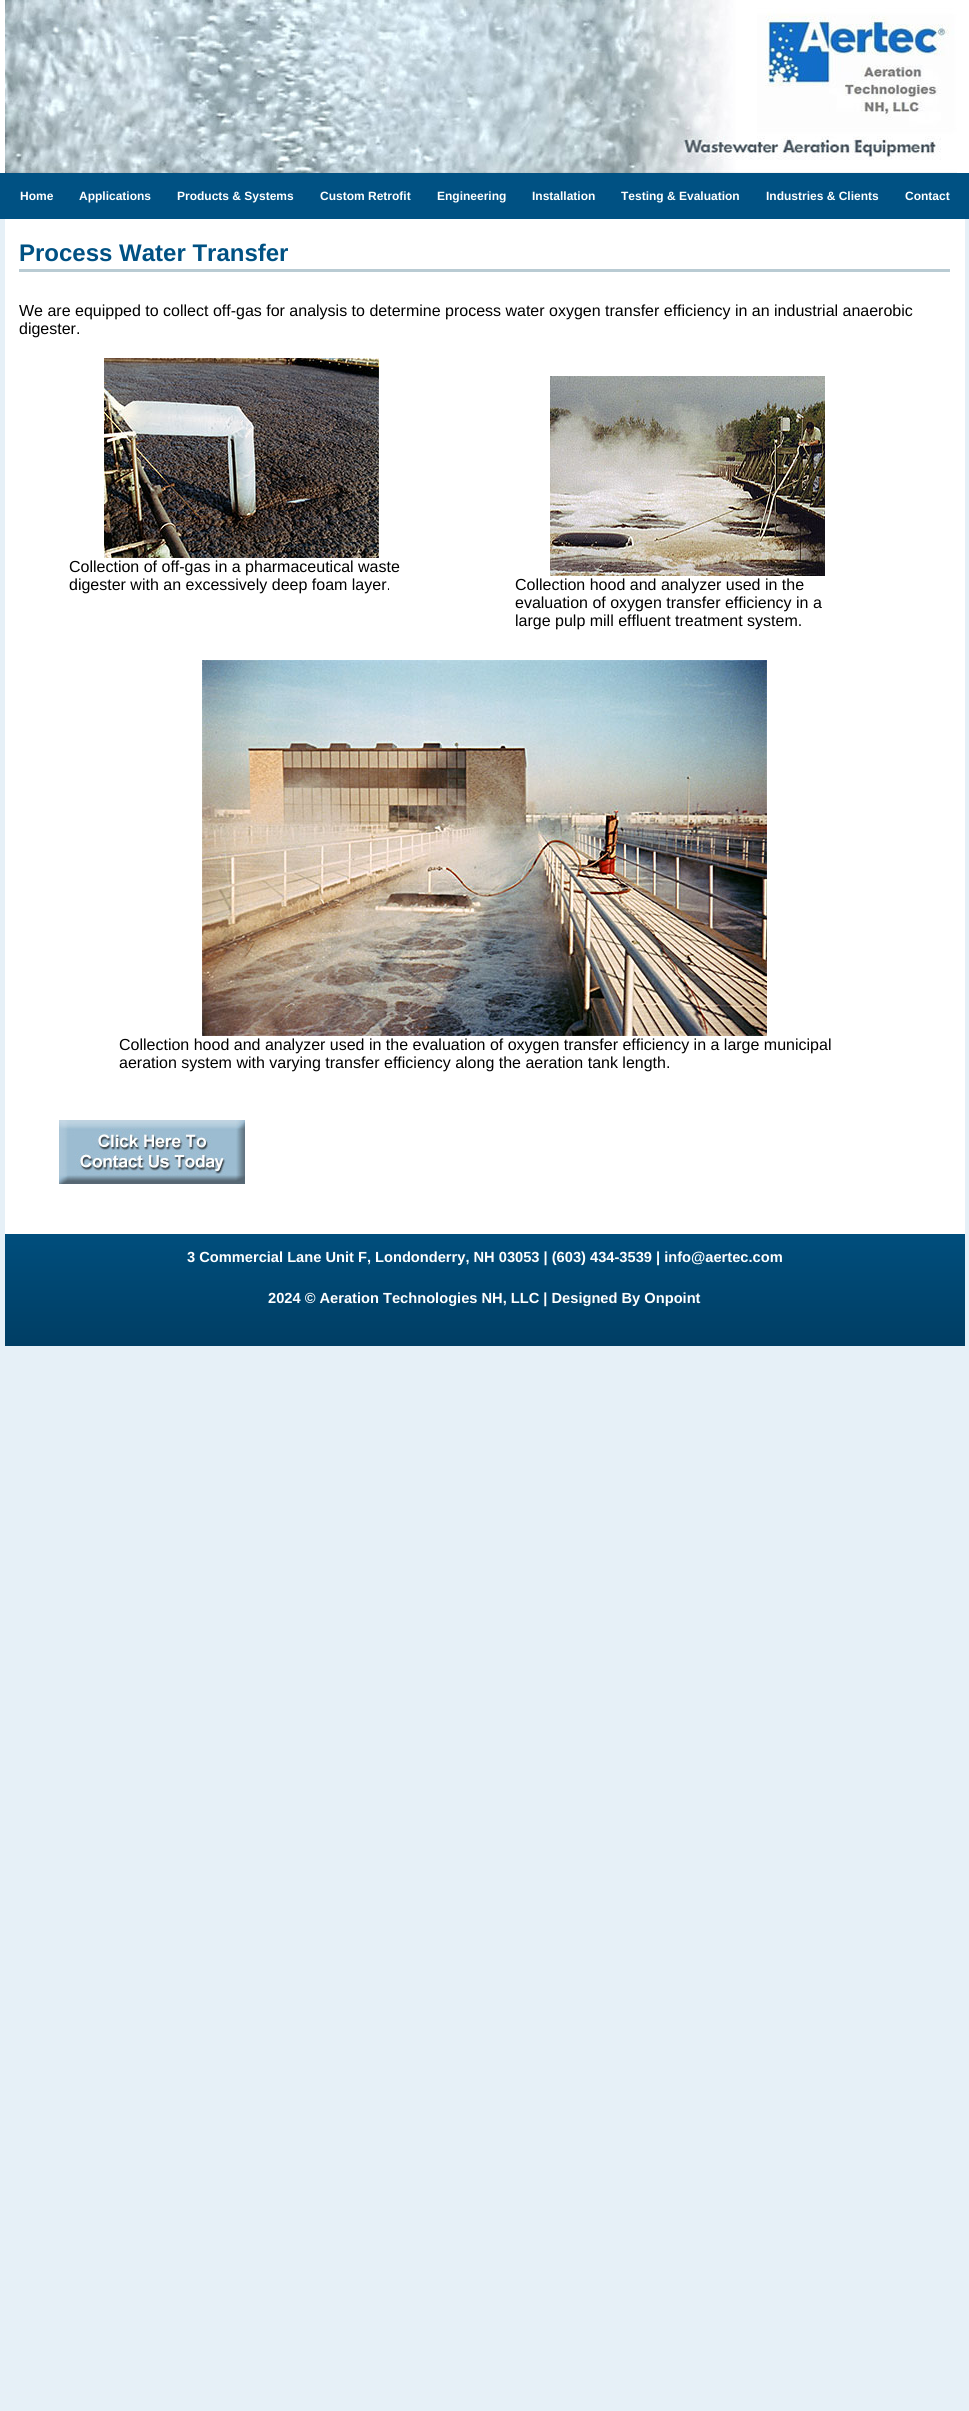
import math
import cairo


def paste(ctx, path, x, y, w, h):
	ctx.save()
	ctx.set_source_surface(cairo.ImageSurface.create_from_png(path), x, y)
	ctx.rectangle(x, y, w, h)
	ctx.fill()
	ctx.restore()

def draw(ctx):
	ctx.set_source_rgb(0.902, 0.941, 0.965)
	ctx.paint()
	ctx.set_source_rgb(1, 1, 1)
	ctx.rectangle(0, 0, 969, 173)
	ctx.fill()
	paste(ctx, 'media/1.png', 5, 0, 952, 173)
	ctx.set_source_rgb(0, 0.318, 0.514)
	ctx.rectangle(0, 173, 969, 46)
	ctx.fill()
	ctx.select_font_face('Liberation Sans', cairo.FONT_SLANT_NORMAL, cairo.FONT_WEIGHT_BOLD)
	ctx.set_font_size(12)
	ctx.set_source_rgb(1, 1, 1)
	for x, y, s in [
		(20, 200, 'Home'),
		(79, 200, 'Applications'),
		(177, 200, 'Products & Systems'),
		(320, 200, 'Custom Retrofit'),
		(437, 200, 'Engineering'),
		(532, 200, 'Installation'),
		(621, 200, 'Testing & Evaluation'),
		(766, 200, 'Industries & Clients'),
		(905, 200, 'Contact'),
	]:
		ctx.move_to(x, y)
		ctx.show_text(s)
	ctx.rectangle(5, 219, 960, 1015)
	ctx.fill()
	ctx.set_source_rgb(0.725, 0.796, 0.827)
	ctx.rectangle(19, 269, 931, 3)
	ctx.fill()
	ctx.set_font_size(24)
	ctx.set_source_rgb(0, 0.318, 0.514)
	ctx.move_to(19, 261)
	ctx.show_text('Process Water Transfer')
	ctx.select_font_face('Liberation Sans')
	ctx.set_font_size(16)
	ctx.set_source_rgb(0, 0, 0)
	ctx.move_to(19, 316)
	ctx.show_text('We are equipped to collect off-gas for analysis to determine process water oxygen transfer efficiency in an industrial anaerobic')
	ctx.move_to(19, 334)
	ctx.show_text('digester.')
	paste(ctx, 'media/2.png', 104, 358, 275, 200)
	ctx.move_to(69, 572)
	ctx.show_text('Collection of off-gas in a pharmaceutical waste')
	ctx.move_to(69, 590)
	ctx.show_text('digester with an excessively deep foam layer.')
	paste(ctx, 'media/3.png', 550, 376, 275, 200)
	for x, y, s in [
		(515, 590, 'Collection hood and analyzer used in the'),
		(515, 608, 'evaluation of oxygen transfer efficiency in a'),
		(515, 626, 'large pulp mill effluent treatment system.'),
	]:
		ctx.move_to(x, y)
		ctx.show_text(s)
	paste(ctx, 'media/4.png', 202, 660, 565, 376)
	ctx.move_to(119, 1050)
	ctx.show_text('Collection hood and analyzer used in the evaluation of oxygen transfer efficiency in a large municipal')
	ctx.move_to(119, 1068)
	ctx.show_text('aeration system with varying transfer efficiency along the aeration tank length.')
	paste(ctx, 'media/5.png', 59, 1120, 186, 64)
	gradient = cairo.LinearGradient(485, 1234, 485, 1346)
	gradient.add_color_stop_rgba(0, 0, 0.306, 0.49, 1)
	gradient.add_color_stop_rgba(1, 0, 0.243, 0.392, 1)
	ctx.set_source(gradient)
	ctx.rectangle(5, 1234, 960, 112)
	ctx.fill()
	ctx.select_font_face('Liberation Sans', cairo.FONT_SLANT_NORMAL, cairo.FONT_WEIGHT_BOLD)
	ctx.set_font_size(14.65)
	ctx.set_source_rgb(1, 1, 1)
	ctx.move_to(187, 1262)
	ctx.show_text('3 Commercial Lane Unit F, Londonderry, NH 03053 | (603) 434-3539 | info@aertec.com')
	ctx.move_to(268, 1303)
	ctx.show_text('2024 © Aeration Technologies NH, LLC | Designed By Onpoint')


surface = cairo.ImageSurface(cairo.FORMAT_RGB24, 969, 2411)
ctx = cairo.Context(surface)
options = cairo.FontOptions()
options.set_hint_metrics(cairo.HINT_METRICS_OFF)
options.set_hint_style(cairo.HINT_STYLE_NONE)
ctx.set_font_options(options)
ctx.set_miter_limit(4)
draw(ctx)
surface.write_to_png('image.png')
